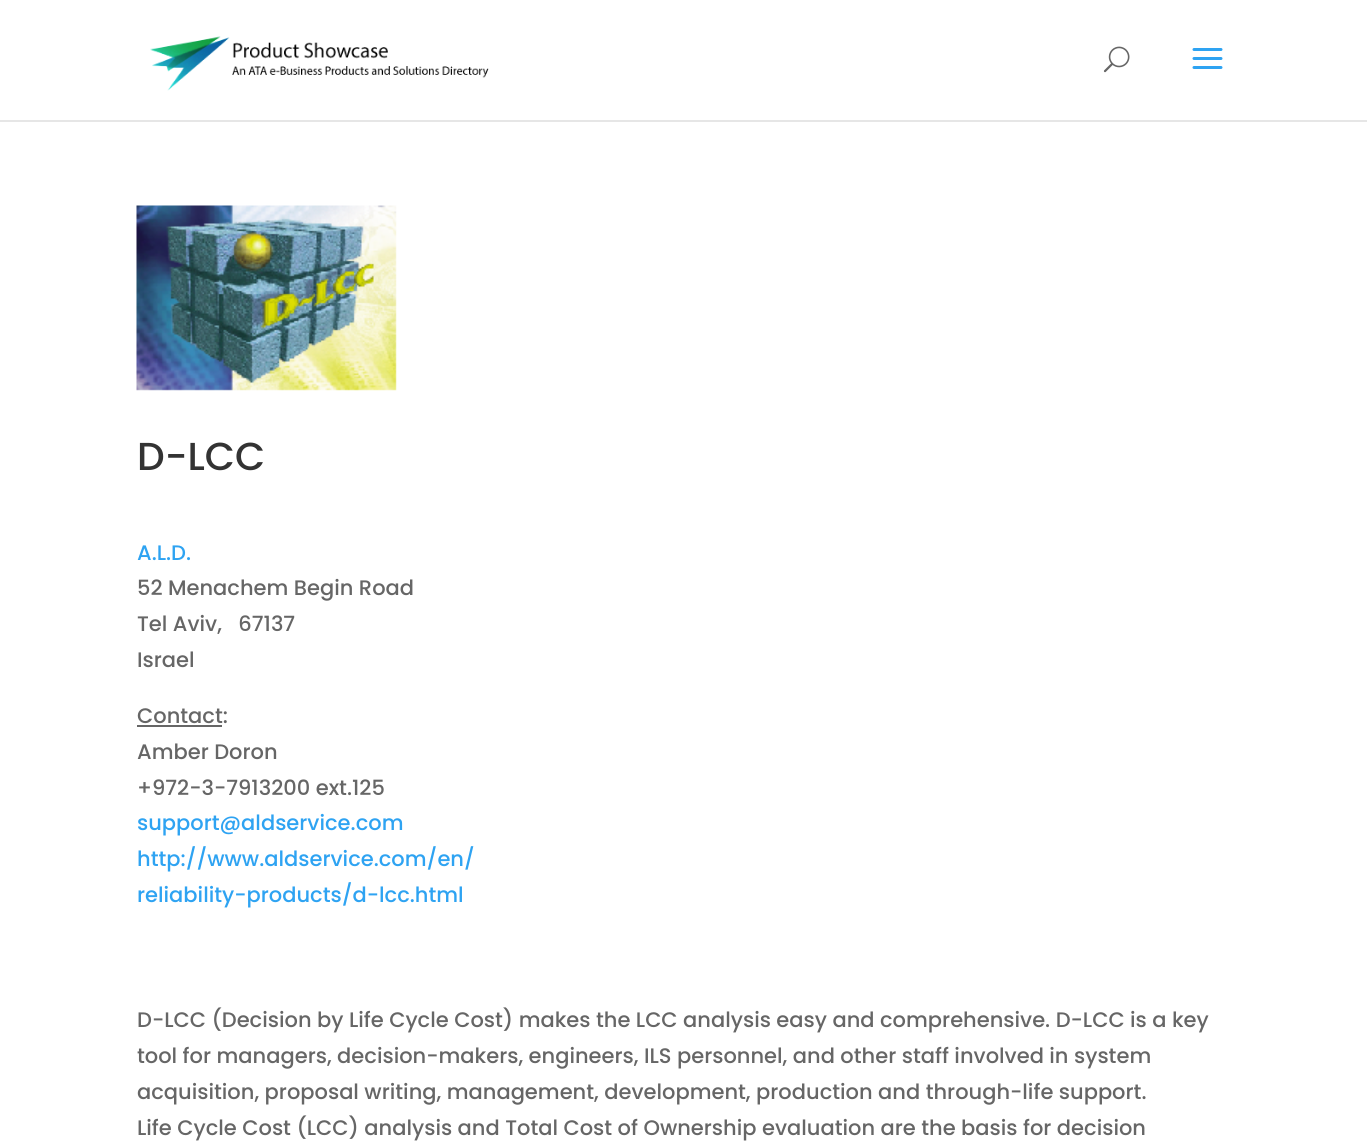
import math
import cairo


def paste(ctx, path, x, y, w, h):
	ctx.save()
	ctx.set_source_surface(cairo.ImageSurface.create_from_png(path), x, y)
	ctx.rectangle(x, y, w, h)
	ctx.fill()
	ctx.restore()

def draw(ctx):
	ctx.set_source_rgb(1, 1, 1)
	ctx.paint()
	ctx.set_source_rgb(0.902, 0.902, 0.902)
	ctx.rectangle(0, 120, 1367, 2)
	ctx.fill()
	paste(ctx, 'media/1.png', 150, 36, 339, 55)
	paste(ctx, 'media/2.png', 1103, 46, 27, 27)
	paste(ctx, 'media/3.png', 1192, 48, 31, 21)
	paste(ctx, 'media/4.png', 136, 205, 261, 186)
	ctx.select_font_face('Poppins Medium')
	ctx.set_font_size(39)
	ctx.set_source_rgb(0.2, 0.2, 0.2)
	ctx.move_to(137, 470)
	ctx.show_text('D-LCC')
	ctx.set_font_size(21)
	ctx.set_source_rgb(0.18, 0.639, 0.949)
	ctx.move_to(137, 560)
	ctx.show_text('A.L.D.')
	ctx.set_source_rgb(0.4, 0.4, 0.4)
	for x, y, s in [
		(137, 595, '52 Menachem Begin Road'),
		(137, 631, 'Tel Aviv,   67137'),
		(137, 667, 'Israel'),
		(137, 723, 'Contact:'),
	]:
		ctx.move_to(x, y)
		ctx.show_text(s)
	ctx.rectangle(137, 725, 85, 2)
	ctx.fill()
	ctx.move_to(137, 759)
	ctx.show_text('Amber Doron')
	ctx.move_to(137, 795)
	ctx.show_text('+972-3-7913200 ext.125')
	ctx.set_source_rgb(0.18, 0.639, 0.949)
	for x, y, s in [
		(137, 830, 'support@aldservice.com'),
		(137, 866, 'http://www.aldservice.com/en/'),
		(137, 902, 'reliability-products/d-lcc.html'),
	]:
		ctx.move_to(x, y)
		ctx.show_text(s)
	ctx.set_source_rgb(0.4, 0.4, 0.4)
	for x, y, s in [
		(137, 1027, 'D-LCC (Decision by Life Cycle Cost) makes the LCC analysis easy and comprehensive. D-LCC is a key'),
		(137, 1063, 'tool for managers, decision-makers, engineers, ILS personnel, and other staff involved in system'),
		(137, 1099, 'acquisition, proposal writing, management, development, production and through-life support.'),
		(137, 1135, 'Life Cycle Cost (LCC) analysis and Total Cost of Ownership evaluation are the basis for decision'),
	]:
		ctx.move_to(x, y)
		ctx.show_text(s)


surface = cairo.ImageSurface(cairo.FORMAT_RGB24, 1367, 1141)
ctx = cairo.Context(surface)
options = cairo.FontOptions()
options.set_hint_metrics(cairo.HINT_METRICS_OFF)
options.set_hint_style(cairo.HINT_STYLE_NONE)
ctx.set_font_options(options)
ctx.set_miter_limit(4)
draw(ctx)
surface.write_to_png('image.png')
